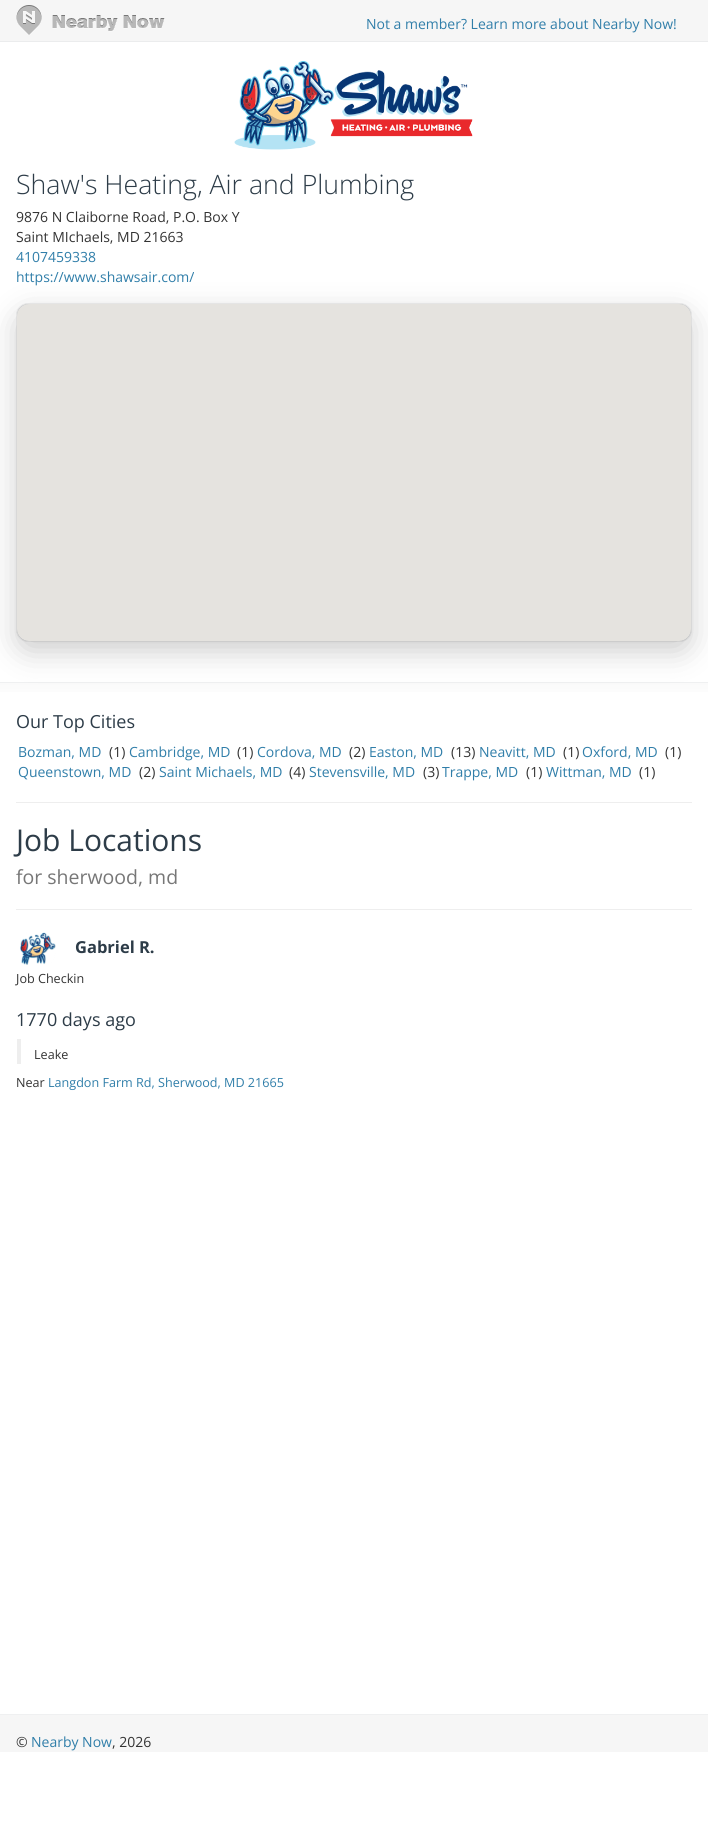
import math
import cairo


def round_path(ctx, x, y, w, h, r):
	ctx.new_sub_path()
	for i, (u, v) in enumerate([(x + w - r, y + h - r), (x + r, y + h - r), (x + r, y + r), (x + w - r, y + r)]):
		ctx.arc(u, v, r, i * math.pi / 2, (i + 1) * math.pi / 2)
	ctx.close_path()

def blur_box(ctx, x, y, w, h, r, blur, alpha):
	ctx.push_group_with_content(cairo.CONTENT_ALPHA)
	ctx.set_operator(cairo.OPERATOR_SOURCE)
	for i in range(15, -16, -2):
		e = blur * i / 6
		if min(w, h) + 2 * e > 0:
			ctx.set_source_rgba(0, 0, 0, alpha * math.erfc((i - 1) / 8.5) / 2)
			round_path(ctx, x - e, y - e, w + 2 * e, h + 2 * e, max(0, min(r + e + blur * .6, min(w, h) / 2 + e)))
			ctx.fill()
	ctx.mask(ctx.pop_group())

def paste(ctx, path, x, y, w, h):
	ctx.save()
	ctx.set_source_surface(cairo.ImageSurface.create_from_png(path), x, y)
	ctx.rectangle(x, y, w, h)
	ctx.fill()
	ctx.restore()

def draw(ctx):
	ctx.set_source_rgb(1, 1, 1)
	ctx.paint()
	ctx.set_source_rgb(0.918, 0.925, 0.929)
	ctx.rectangle(0, 41, 708, 1)
	ctx.fill()
	ctx.set_source_rgb(0.961, 0.961, 0.961)
	ctx.rectangle(0, 0, 708, 41)
	ctx.fill()
	paste(ctx, 'media/1.png', 16, 5, 149, 30)
	ctx.select_font_face('Open Sans')
	ctx.set_font_size(14)
	ctx.set_source_rgb(0.188, 0.494, 0.663)
	ctx.move_to(366, 29)
	ctx.show_text('Not a member? Learn more about Nearby Now!')
	paste(ctx, 'media/2.png', 234, 61, 239, 89)
	ctx.select_font_face('Open Sans Light')
	ctx.set_font_size(26.7)
	ctx.set_source_rgb(0.176, 0.235, 0.282)
	ctx.move_to(16, 194)
	ctx.show_text('Shaw\'s Heating, Air and Plumbing')
	ctx.select_font_face('Open Sans')
	ctx.set_font_size(14)
	ctx.set_source_rgb(0.2, 0.2, 0.2)
	ctx.move_to(16, 222)
	ctx.show_text('9876 N Claiborne Road, P.O. Box Y')
	ctx.move_to(16, 242)
	ctx.show_text('Saint MIchaels, MD 21663')
	ctx.set_source_rgb(0.188, 0.494, 0.663)
	ctx.move_to(16, 262)
	ctx.show_text('4107459338')
	ctx.move_to(16, 282)
	ctx.show_text('https://www.shawsair.com/')
	ctx.set_source_rgb(0.804, 0.816, 0.831)
	round_path(ctx, 16.5, 303.5, 675, 338, 11.5)
	ctx.fill_preserve()
	ctx.set_source_rgb(0.941, 0.941, 0.941)
	ctx.set_line_width(1)
	ctx.stroke()
	gradient = cairo.LinearGradient(354, 683, 354, 702)
	gradient.add_color_stop_rgba(0, 0.98, 0.98, 0.98, 1)
	gradient.add_color_stop_rgba(1, 1, 1, 1, 1)
	ctx.set_source(gradient)
	ctx.rectangle(0, 683, 708, 9)
	ctx.fill()
	ctx.set_source_rgb(0.937, 0.941, 0.945)
	ctx.rectangle(0, 682, 708, 1)
	ctx.fill()
	ctx.set_source_rgb(0, 0, 0)
	blur_box(ctx, 17, 314, 674, 337, 12, 15, 0.2)
	ctx.set_source_rgb(0.898, 0.89, 0.875)
	round_path(ctx, 17, 304, 674, 337, 12)
	ctx.fill()
	ctx.set_font_size(18)
	ctx.set_source_rgb(0.176, 0.235, 0.282)
	ctx.move_to(16, 728)
	ctx.show_text('Our Top Cities')
	ctx.set_font_size(14)
	ctx.set_source_rgb(0.188, 0.494, 0.663)
	ctx.move_to(18, 757)
	ctx.show_text('Bozman, MD')
	ctx.set_source_rgb(0.2, 0.2, 0.2)
	ctx.move_to(109, 757)
	ctx.show_text('(1)')
	ctx.set_source_rgb(0.188, 0.494, 0.663)
	ctx.move_to(129, 757)
	ctx.show_text('Cambridge, MD')
	ctx.set_source_rgb(0.2, 0.2, 0.2)
	ctx.move_to(237, 757)
	ctx.show_text('(1)')
	ctx.set_source_rgb(0.188, 0.494, 0.663)
	ctx.move_to(257, 757)
	ctx.show_text('Cordova, MD')
	ctx.set_source_rgb(0.2, 0.2, 0.2)
	ctx.move_to(349, 757)
	ctx.show_text('(2)')
	ctx.set_source_rgb(0.188, 0.494, 0.663)
	ctx.move_to(369, 757)
	ctx.show_text('Easton, MD')
	ctx.set_source_rgb(0.2, 0.2, 0.2)
	ctx.move_to(451, 757)
	ctx.show_text('(13)')
	ctx.set_source_rgb(0.188, 0.494, 0.663)
	ctx.move_to(479, 757)
	ctx.show_text('Neavitt, MD')
	ctx.set_source_rgb(0.2, 0.2, 0.2)
	ctx.move_to(563, 757)
	ctx.show_text('(1)')
	ctx.set_source_rgb(0.188, 0.494, 0.663)
	ctx.move_to(582, 757)
	ctx.show_text('Oxford, MD')
	ctx.set_source_rgb(0.2, 0.2, 0.2)
	ctx.move_to(665, 757)
	ctx.show_text('(1)')
	ctx.set_source_rgb(0.188, 0.494, 0.663)
	ctx.move_to(18, 777)
	ctx.show_text('Queenstown, MD')
	ctx.set_source_rgb(0.2, 0.2, 0.2)
	ctx.move_to(139, 777)
	ctx.show_text('(2)')
	ctx.set_source_rgb(0.188, 0.494, 0.663)
	ctx.move_to(159, 777)
	ctx.show_text('Saint Michaels, MD')
	ctx.set_source_rgb(0.2, 0.2, 0.2)
	ctx.move_to(289, 777)
	ctx.show_text('(4)')
	ctx.set_source_rgb(0.188, 0.494, 0.663)
	ctx.move_to(309, 777)
	ctx.show_text('Stevensville, MD')
	ctx.set_source_rgb(0.2, 0.2, 0.2)
	ctx.move_to(423, 777)
	ctx.show_text('(3)')
	ctx.set_source_rgb(0.188, 0.494, 0.663)
	ctx.move_to(442, 777)
	ctx.show_text('Trappe, MD')
	ctx.set_source_rgb(0.2, 0.2, 0.2)
	ctx.move_to(526, 777)
	ctx.show_text('(1)')
	ctx.set_source_rgb(0.188, 0.494, 0.663)
	ctx.move_to(546, 777)
	ctx.show_text('Wittman, MD')
	ctx.set_source_rgb(0.2, 0.2, 0.2)
	ctx.move_to(639, 777)
	ctx.show_text('(1)')
	ctx.set_source_rgb(0.933, 0.933, 0.933)
	ctx.rectangle(16, 802, 676, 1)
	ctx.fill()
	ctx.set_font_size(30)
	ctx.set_source_rgb(0.176, 0.235, 0.282)
	ctx.move_to(16, 851)
	ctx.show_text('Job Locations')
	ctx.set_font_size(19.5)
	ctx.set_source_rgb(0.467, 0.467, 0.467)
	ctx.move_to(16, 884)
	ctx.show_text('for sherwood, md')
	ctx.set_source_rgb(0.933, 0.933, 0.933)
	ctx.rectangle(16, 909, 676, 1)
	ctx.fill()
	paste(ctx, 'media/3.png', 20, 932, 36, 33)
	ctx.select_font_face('Open Sans', cairo.FONT_SLANT_NORMAL, cairo.FONT_WEIGHT_BOLD)
	ctx.set_font_size(16.5)
	ctx.set_source_rgb(0.176, 0.235, 0.282)
	ctx.move_to(75, 953)
	ctx.show_text('Gabriel R.')
	ctx.select_font_face('Open Sans')
	ctx.set_font_size(12.6)
	ctx.set_source_rgb(0.2, 0.2, 0.2)
	ctx.move_to(16, 983)
	ctx.show_text('Job Checkin')
	ctx.set_font_size(18)
	ctx.set_source_rgb(0.176, 0.235, 0.282)
	ctx.move_to(16, 1026)
	ctx.show_text('1770 days ago')
	ctx.set_source_rgb(0.933, 0.933, 0.933)
	ctx.rectangle(17, 1039, 4, 25)
	ctx.fill()
	ctx.set_font_size(12.6)
	ctx.set_source_rgb(0.2, 0.2, 0.2)
	ctx.move_to(34, 1059)
	ctx.show_text('Leake')
	ctx.move_to(16, 1087)
	ctx.show_text('Near')
	ctx.set_source_rgb(0.188, 0.494, 0.663)
	ctx.move_to(48, 1087)
	ctx.show_text('Langdon Farm Rd, Sherwood, MD 21665')
	ctx.set_source_rgb(0.961, 0.961, 0.961)
	ctx.rectangle(0, 1715, 708, 37)
	ctx.fill()
	ctx.set_source_rgb(0.937, 0.941, 0.945)
	ctx.rectangle(0, 1714, 708, 1)
	ctx.fill()
	ctx.set_font_size(14)
	ctx.set_source_rgb(0.2, 0.2, 0.2)
	ctx.move_to(16, 1747)
	ctx.show_text('©')
	ctx.set_source_rgb(0.188, 0.494, 0.663)
	ctx.move_to(31, 1747)
	ctx.show_text('Nearby Now')
	ctx.set_source_rgb(0.2, 0.2, 0.2)
	ctx.move_to(112, 1747)
	ctx.show_text(', 2026')


surface = cairo.ImageSurface(cairo.FORMAT_RGB24, 708, 1846)
ctx = cairo.Context(surface)
options = cairo.FontOptions()
options.set_hint_metrics(cairo.HINT_METRICS_OFF)
options.set_hint_style(cairo.HINT_STYLE_NONE)
ctx.set_font_options(options)
ctx.set_miter_limit(4)
draw(ctx)
surface.write_to_png('image.png')
